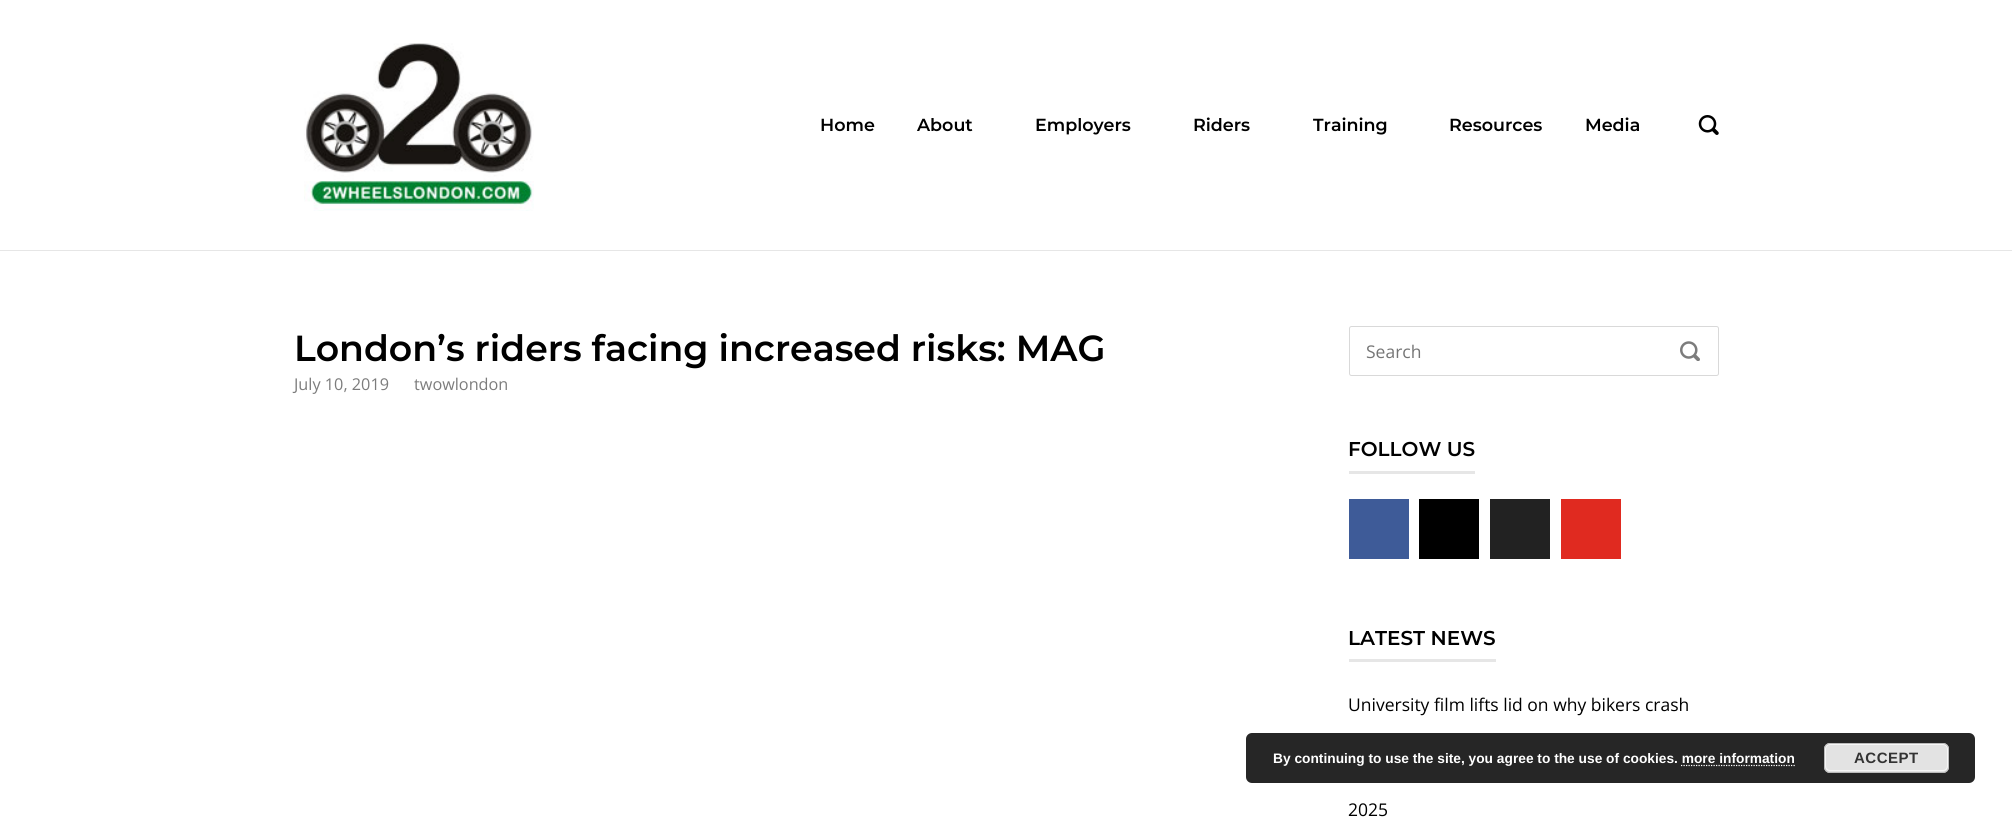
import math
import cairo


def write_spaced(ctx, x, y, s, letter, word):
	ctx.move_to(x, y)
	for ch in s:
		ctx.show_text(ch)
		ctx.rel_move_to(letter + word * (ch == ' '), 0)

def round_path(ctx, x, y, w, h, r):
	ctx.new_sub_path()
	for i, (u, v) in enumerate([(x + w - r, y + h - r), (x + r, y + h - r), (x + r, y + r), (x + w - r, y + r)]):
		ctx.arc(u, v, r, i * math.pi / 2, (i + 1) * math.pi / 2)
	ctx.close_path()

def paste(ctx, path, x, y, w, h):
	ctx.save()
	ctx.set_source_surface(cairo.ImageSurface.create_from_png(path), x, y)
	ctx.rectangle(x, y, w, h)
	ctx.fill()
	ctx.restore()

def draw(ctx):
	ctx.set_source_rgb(1, 1, 1)
	ctx.paint()
	ctx.set_source_rgb(0.902, 0.902, 0.902)
	ctx.rectangle(0, 250, 2012, 1)
	ctx.fill()
	paste(ctx, 'media/1.png', 304, 43, 230, 168)
	ctx.select_font_face('Montserrat SemiBold')
	ctx.set_font_size(17.5)
	ctx.set_source_rgb(0, 0, 0)
	for x, y, s in [
		(820, 131, 'Home'),
		(917, 131, 'About'),
		(1035, 131, 'Employers'),
		(1193, 131, 'Riders'),
		(1313, 131, 'Training'),
		(1449, 131, 'Resources'),
		(1585, 131, 'Media'),
	]:
		ctx.move_to(x, y)
		ctx.show_text(s)
	paste(ctx, 'media/2.png', 1698, 115, 21, 20)
	ctx.set_font_size(36.25)
	ctx.move_to(294, 361)
	ctx.show_text('London’s riders facing increased risks: MAG')
	ctx.select_font_face('Open Sans')
	ctx.set_font_size(16.25)
	ctx.set_source_rgb(0.486, 0.486, 0.486)
	ctx.move_to(294, 390)
	ctx.show_text('July 10, 2019')
	ctx.move_to(414, 390)
	ctx.show_text('twowlondon')
	round_path(ctx, 1349.5, 326.5, 369, 49, 2)
	ctx.set_source_rgb(0.851, 0.851, 0.851)
	ctx.set_line_width(1)
	ctx.stroke()
	ctx.set_font_size(17.5)
	ctx.set_source_rgb(0.459, 0.459, 0.459)
	ctx.move_to(1366, 358)
	ctx.show_text('Search')
	paste(ctx, 'media/3.png', 1680, 341, 20, 20)
	ctx.set_source_rgb(0.902, 0.902, 0.902)
	ctx.rectangle(1349, 471, 126, 3)
	ctx.fill()
	ctx.select_font_face('Montserrat SemiBold')
	ctx.set_font_size(20)
	ctx.set_source_rgb(0, 0, 0)
	ctx.move_to(1348, 456)
	ctx.show_text('FOLLOW US')
	ctx.set_source_rgb(0.243, 0.357, 0.596)
	ctx.rectangle(1349, 499, 60, 60)
	ctx.fill()
	ctx.set_source_rgb(0, 0, 0)
	ctx.rectangle(1419, 499, 60, 60)
	ctx.fill()
	ctx.set_source_rgb(0.133, 0.133, 0.133)
	ctx.rectangle(1490, 499, 60, 60)
	ctx.fill()
	ctx.set_source_rgb(0.878, 0.165, 0.125)
	ctx.rectangle(1561, 499, 60, 60)
	ctx.fill()
	ctx.set_source_rgb(0.902, 0.902, 0.902)
	ctx.rectangle(1349, 659, 147, 3)
	ctx.fill()
	ctx.set_source_rgb(0, 0, 0)
	ctx.move_to(1348, 645)
	ctx.show_text('LATEST NEWS')
	ctx.select_font_face('Open Sans')
	ctx.set_font_size(17.5)
	ctx.move_to(1348, 711)
	ctx.show_text('University film lifts lid on why bikers crash')
	ctx.move_to(1348, 816)
	ctx.show_text('2025')
	ctx.set_source_rgba(0, 0, 0, 0.85)
	round_path(ctx, 1246, 733, 729, 50, 6)
	ctx.fill()
	ctx.select_font_face('Liberation Sans', cairo.FONT_SLANT_NORMAL, cairo.FONT_WEIGHT_BOLD)
	ctx.set_font_size(13.75)
	ctx.set_source_rgb(1, 1, 1)
	ctx.move_to(1273, 763)
	ctx.show_text('By continuing to use the site, you agree to the use of cookies. more information')
	ctx.set_source_rgb(0.89, 0.89, 0.89)
	round_path(ctx, 1824, 743, 125, 30, 6)
	ctx.fill()
	round_path(ctx, 1825.5, 744.5, 122, 26, 4.5)
	ctx.set_source_rgb(0.965, 0.965, 0.965)
	ctx.stroke()
	round_path(ctx, 1824.5, 743.5, 124, 29, 5.5)
	ctx.set_source_rgb(0.733, 0.733, 0.733)
	ctx.stroke()
	ctx.set_font_size(15)
	ctx.set_source_rgb(0.2, 0.2, 0.2)
	write_spaced(ctx, 1854, 763, 'ACCEPT', 0.5, 0)
	ctx.new_path()
	ctx.move_to(1681, 765.5)
	ctx.line_to(1795, 765.5)
	ctx.set_source_rgb(1, 1, 1)
	ctx.set_line_width(1.2)
	ctx.set_dash([1.25, 1.25])
	ctx.stroke()


surface = cairo.ImageSurface(cairo.FORMAT_RGB24, 2012, 820)
ctx = cairo.Context(surface)
options = cairo.FontOptions()
options.set_hint_metrics(cairo.HINT_METRICS_OFF)
options.set_hint_style(cairo.HINT_STYLE_NONE)
ctx.set_font_options(options)
ctx.set_miter_limit(4)
draw(ctx)
surface.write_to_png('image.png')
